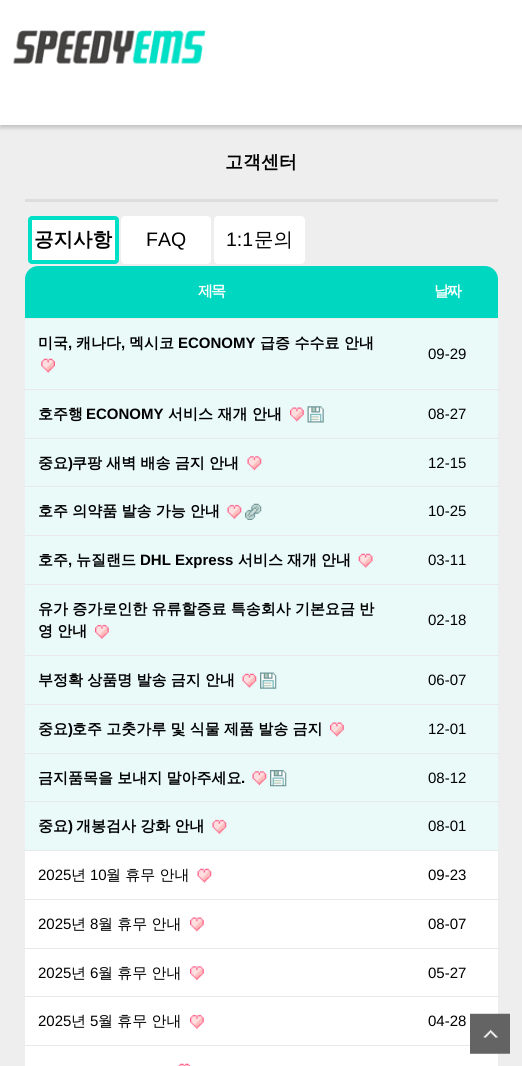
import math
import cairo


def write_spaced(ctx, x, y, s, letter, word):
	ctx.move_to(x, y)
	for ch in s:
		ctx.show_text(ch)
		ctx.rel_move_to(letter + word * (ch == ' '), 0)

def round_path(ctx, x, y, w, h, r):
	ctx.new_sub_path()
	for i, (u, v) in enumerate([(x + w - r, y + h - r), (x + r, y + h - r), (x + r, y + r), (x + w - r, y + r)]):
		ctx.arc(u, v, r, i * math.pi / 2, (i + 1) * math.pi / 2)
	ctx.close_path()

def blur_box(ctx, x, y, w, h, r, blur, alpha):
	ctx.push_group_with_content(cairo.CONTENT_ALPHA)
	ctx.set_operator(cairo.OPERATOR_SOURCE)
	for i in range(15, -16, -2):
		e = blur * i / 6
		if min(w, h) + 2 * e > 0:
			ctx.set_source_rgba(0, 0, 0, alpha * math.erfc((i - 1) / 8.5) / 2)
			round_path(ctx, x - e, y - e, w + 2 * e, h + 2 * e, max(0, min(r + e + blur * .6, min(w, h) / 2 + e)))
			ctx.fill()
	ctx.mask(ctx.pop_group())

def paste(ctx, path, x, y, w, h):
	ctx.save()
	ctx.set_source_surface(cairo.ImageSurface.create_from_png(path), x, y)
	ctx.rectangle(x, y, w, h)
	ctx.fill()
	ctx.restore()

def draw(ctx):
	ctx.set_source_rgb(1, 1, 1)
	ctx.paint()
	ctx.set_source_rgb(0.933, 0.933, 0.933)
	ctx.rectangle(0, 125, 522, 941)
	ctx.fill()
	ctx.save()
	ctx.rectangle(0, 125, 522, 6)
	ctx.clip()
	ctx.set_source_rgb(0.325, 0.325, 0.365)
	blur_box(ctx, 0, 3, 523, 125, 0, 2, 0.28)
	ctx.restore()
	paste(ctx, 'media/1.png', 13, 30, 193, 34)
	ctx.set_source_rgb(0.867, 0.867, 0.867)
	ctx.rectangle(25, 199, 473, 3)
	ctx.fill()
	ctx.select_font_face('WenQuanYi Zen Hei', cairo.FONT_SLANT_NORMAL, cairo.FONT_WEIGHT_BOLD)
	ctx.set_font_size(18)
	ctx.set_source_rgb(0, 0, 0)
	ctx.move_to(225, 168)
	ctx.show_text('고객센터')
	ctx.set_source_rgb(1, 1, 1)
	round_path(ctx, 30, 218, 87, 44, 2)
	ctx.fill_preserve()
	ctx.set_source_rgb(0, 0.878, 0.78)
	ctx.set_line_width(4)
	ctx.stroke()
	ctx.set_font_size(19.5)
	ctx.set_source_rgb(0, 0, 0)
	ctx.move_to(34, 246)
	ctx.show_text('공지사항')
	ctx.set_source_rgb(1, 1, 1)
	round_path(ctx, 123, 218, 86, 44, 2)
	ctx.fill_preserve()
	ctx.stroke()
	ctx.select_font_face('Liberation Sans')
	ctx.set_source_rgb(0, 0, 0)
	ctx.move_to(146, 246)
	ctx.show_text('FAQ')
	ctx.set_source_rgb(1, 1, 1)
	round_path(ctx, 216, 218, 87, 44, 2)
	ctx.fill_preserve()
	ctx.stroke()
	ctx.set_source_rgb(0, 0, 0)
	ctx.move_to(226, 246)
	ctx.show_text('1:1')
	ctx.select_font_face('WenQuanYi Zen Hei Medium')
	ctx.move_to(254, 246)
	ctx.show_text('문의')
	ctx.set_source_rgb(0, 0.843, 0.757)
	ctx.new_path()
	ctx.move_to(38, 266)
	ctx.line_to(398, 266)
	ctx.line_to(398, 319)
	ctx.line_to(25, 319)
	ctx.line_to(25, 279)
	ctx.curve_to(25, 272, 31, 266, 38, 266)
	ctx.close_path()
	ctx.fill()
	ctx.select_font_face('WenQuanYi Zen Hei', cairo.FONT_SLANT_NORMAL, cairo.FONT_WEIGHT_BOLD)
	ctx.set_font_size(15)
	ctx.set_source_rgb(1, 1, 1)
	write_spaced(ctx, 198, 296, '제목', -2, 0)
	ctx.set_source_rgb(0, 0.843, 0.757)
	ctx.new_path()
	ctx.move_to(398, 266)
	ctx.line_to(485, 266)
	ctx.curve_to(492, 266, 498, 272, 498, 279)
	ctx.line_to(498, 319)
	ctx.line_to(398, 319)
	ctx.close_path()
	ctx.fill()
	ctx.set_source_rgb(1, 1, 1)
	write_spaced(ctx, 434, 296, '날짜', -2, 0)
	ctx.set_source_rgb(0.914, 0.98, 0.973)
	ctx.rectangle(25, 319, 473, 70)
	ctx.fill()
	ctx.set_source_rgb(0, 0, 0)
	ctx.move_to(38, 348)
	ctx.show_text('미국')
	ctx.select_font_face('Liberation Sans', cairo.FONT_SLANT_NORMAL, cairo.FONT_WEIGHT_BOLD)
	ctx.move_to(68, 348)
	ctx.show_text(',')
	ctx.select_font_face('WenQuanYi Zen Hei', cairo.FONT_SLANT_NORMAL, cairo.FONT_WEIGHT_BOLD)
	ctx.move_to(76, 348)
	ctx.show_text('캐나다')
	ctx.select_font_face('Liberation Sans', cairo.FONT_SLANT_NORMAL, cairo.FONT_WEIGHT_BOLD)
	ctx.move_to(121, 348)
	ctx.show_text(',')
	ctx.select_font_face('WenQuanYi Zen Hei', cairo.FONT_SLANT_NORMAL, cairo.FONT_WEIGHT_BOLD)
	ctx.move_to(129, 348)
	ctx.show_text('멕시코')
	ctx.select_font_face('Liberation Sans', cairo.FONT_SLANT_NORMAL, cairo.FONT_WEIGHT_BOLD)
	ctx.move_to(178, 348)
	ctx.show_text('ECONOMY')
	ctx.select_font_face('WenQuanYi Zen Hei', cairo.FONT_SLANT_NORMAL, cairo.FONT_WEIGHT_BOLD)
	ctx.move_to(260, 348)
	ctx.show_text('급증 수수료 안내')
	paste(ctx, 'media/2.png', 41, 358, 14, 15)
	ctx.set_source_rgb(0.933, 0.933, 0.933)
	ctx.rectangle(25, 318, 474, 1)
	ctx.fill()
	ctx.set_source_rgb(0.914, 0.914, 0.914)
	ctx.rectangle(25, 389, 474, 1)
	ctx.fill()
	ctx.select_font_face('Liberation Sans')
	ctx.set_source_rgb(0, 0, 0)
	ctx.move_to(428, 359)
	ctx.show_text('09-29')
	ctx.set_source_rgb(0.914, 0.98, 0.973)
	ctx.rectangle(25, 390, 473, 48)
	ctx.fill()
	ctx.select_font_face('WenQuanYi Zen Hei', cairo.FONT_SLANT_NORMAL, cairo.FONT_WEIGHT_BOLD)
	ctx.set_source_rgb(0, 0, 0)
	ctx.move_to(38, 419)
	ctx.show_text('호주행')
	ctx.select_font_face('Liberation Sans', cairo.FONT_SLANT_NORMAL, cairo.FONT_WEIGHT_BOLD)
	ctx.move_to(86, 419)
	ctx.show_text('ECONOMY')
	ctx.select_font_face('WenQuanYi Zen Hei', cairo.FONT_SLANT_NORMAL, cairo.FONT_WEIGHT_BOLD)
	ctx.move_to(168, 419)
	ctx.show_text('서비스 재개 안내')
	paste(ctx, 'media/3.png', 290, 407, 14, 15)
	paste(ctx, 'media/4.png', 307, 406, 17, 17)
	ctx.set_source_rgb(0.914, 0.914, 0.914)
	ctx.rectangle(25, 438, 474, 1)
	ctx.fill()
	ctx.select_font_face('Liberation Sans')
	ctx.set_source_rgb(0, 0, 0)
	ctx.move_to(428, 419)
	ctx.show_text('08-27')
	ctx.set_source_rgb(0.914, 0.98, 0.973)
	ctx.rectangle(25, 439, 473, 49)
	ctx.fill()
	ctx.select_font_face('WenQuanYi Zen Hei', cairo.FONT_SLANT_NORMAL, cairo.FONT_WEIGHT_BOLD)
	ctx.set_source_rgb(0, 0, 0)
	ctx.move_to(38, 468)
	ctx.show_text('중요')
	ctx.select_font_face('Liberation Sans', cairo.FONT_SLANT_NORMAL, cairo.FONT_WEIGHT_BOLD)
	ctx.move_to(68, 468)
	ctx.show_text(')')
	ctx.select_font_face('WenQuanYi Zen Hei', cairo.FONT_SLANT_NORMAL, cairo.FONT_WEIGHT_BOLD)
	write_spaced(ctx, 72, 468, '쿠팡 새벽 배송 금지 안내', 0, -0.25)
	paste(ctx, 'media/5.png', 247, 456, 15, 15)
	ctx.set_source_rgb(0.914, 0.914, 0.914)
	ctx.rectangle(25, 486, 474, 1)
	ctx.fill()
	ctx.select_font_face('Liberation Sans')
	ctx.set_source_rgb(0, 0, 0)
	ctx.move_to(428, 468)
	ctx.show_text('12-15')
	ctx.set_source_rgb(0.914, 0.98, 0.973)
	ctx.rectangle(25, 488, 473, 47)
	ctx.fill()
	ctx.select_font_face('WenQuanYi Zen Hei', cairo.FONT_SLANT_NORMAL, cairo.FONT_WEIGHT_BOLD)
	ctx.set_source_rgb(0, 0, 0)
	write_spaced(ctx, 38, 516, '호주 의약품 발송 가능 안내', 0, -0.25)
	paste(ctx, 'media/6.png', 227, 504, 15, 15)
	paste(ctx, 'media/7.png', 245, 503, 17, 17)
	ctx.set_source_rgb(0.914, 0.914, 0.914)
	ctx.rectangle(25, 535, 474, 1)
	ctx.fill()
	ctx.select_font_face('Liberation Sans')
	ctx.set_source_rgb(0, 0, 0)
	ctx.move_to(428, 516)
	ctx.show_text('10-25')
	ctx.set_source_rgb(0.914, 0.98, 0.973)
	ctx.rectangle(25, 536, 473, 48)
	ctx.fill()
	ctx.select_font_face('WenQuanYi Zen Hei', cairo.FONT_SLANT_NORMAL, cairo.FONT_WEIGHT_BOLD)
	ctx.set_source_rgb(0, 0, 0)
	ctx.move_to(38, 565)
	ctx.show_text('호주')
	ctx.select_font_face('Liberation Sans', cairo.FONT_SLANT_NORMAL, cairo.FONT_WEIGHT_BOLD)
	ctx.move_to(68, 565)
	ctx.show_text(',')
	ctx.select_font_face('WenQuanYi Zen Hei', cairo.FONT_SLANT_NORMAL, cairo.FONT_WEIGHT_BOLD)
	ctx.move_to(76, 565)
	ctx.show_text('뉴질랜드')
	ctx.select_font_face('Liberation Sans', cairo.FONT_SLANT_NORMAL, cairo.FONT_WEIGHT_BOLD)
	ctx.move_to(140, 565)
	ctx.show_text('DHL Express')
	ctx.select_font_face('WenQuanYi Zen Hei', cairo.FONT_SLANT_NORMAL, cairo.FONT_WEIGHT_BOLD)
	for x, y, s in [
		(238, 565, '서비스'),
		(287, 565, '재개'),
		(321, 565, '안내'),
	]:
		ctx.move_to(x, y)
		ctx.show_text(s)
	paste(ctx, 'media/8.png', 358, 553, 15, 15)
	ctx.set_source_rgb(0.914, 0.914, 0.914)
	ctx.rectangle(25, 584, 474, 1)
	ctx.fill()
	ctx.select_font_face('Liberation Sans')
	ctx.set_source_rgb(0, 0, 0)
	ctx.move_to(428, 565)
	ctx.show_text('03-11')
	ctx.set_source_rgb(0.914, 0.98, 0.973)
	ctx.rectangle(25, 585, 473, 70)
	ctx.fill()
	ctx.select_font_face('WenQuanYi Zen Hei', cairo.FONT_SLANT_NORMAL, cairo.FONT_WEIGHT_BOLD)
	ctx.set_source_rgb(0, 0, 0)
	write_spaced(ctx, 38, 614, '유가 증가로인한 유류할증료 특송회사 기본요금 반', 0, -0.25)
	write_spaced(ctx, 38, 636, '영 안내', 0, -0.25)
	paste(ctx, 'media/9.png', 95, 624, 14, 15)
	ctx.set_source_rgb(0.914, 0.914, 0.914)
	ctx.rectangle(25, 655, 474, 1)
	ctx.fill()
	ctx.select_font_face('Liberation Sans')
	ctx.set_source_rgb(0, 0, 0)
	ctx.move_to(428, 625)
	ctx.show_text('02-18')
	ctx.set_source_rgb(0.914, 0.98, 0.973)
	ctx.rectangle(25, 656, 473, 48)
	ctx.fill()
	ctx.select_font_face('WenQuanYi Zen Hei', cairo.FONT_SLANT_NORMAL, cairo.FONT_WEIGHT_BOLD)
	ctx.set_source_rgb(0, 0, 0)
	write_spaced(ctx, 38, 685, '부정확 상품명 발송 금지 안내', 0, -0.25)
	paste(ctx, 'media/10.png', 242, 673, 15, 15)
	paste(ctx, 'media/11.png', 260, 672, 17, 17)
	ctx.set_source_rgb(0.914, 0.914, 0.914)
	ctx.rectangle(25, 704, 474, 1)
	ctx.fill()
	ctx.select_font_face('Liberation Sans')
	ctx.set_source_rgb(0, 0, 0)
	ctx.move_to(428, 685)
	ctx.show_text('06-07')
	ctx.set_source_rgb(0.914, 0.98, 0.973)
	ctx.rectangle(25, 705, 473, 48)
	ctx.fill()
	ctx.select_font_face('WenQuanYi Zen Hei', cairo.FONT_SLANT_NORMAL, cairo.FONT_WEIGHT_BOLD)
	ctx.set_source_rgb(0, 0, 0)
	ctx.move_to(38, 734)
	ctx.show_text('중요')
	ctx.select_font_face('Liberation Sans', cairo.FONT_SLANT_NORMAL, cairo.FONT_WEIGHT_BOLD)
	ctx.move_to(68, 734)
	ctx.show_text(')')
	ctx.select_font_face('WenQuanYi Zen Hei', cairo.FONT_SLANT_NORMAL, cairo.FONT_WEIGHT_BOLD)
	write_spaced(ctx, 72, 734, '호주 고춧가루 및 식물 제품 발송 금지', 0, -0.25)
	paste(ctx, 'media/12.png', 330, 722, 14, 15)
	ctx.set_source_rgb(0.914, 0.914, 0.914)
	ctx.rectangle(25, 753, 474, 1)
	ctx.fill()
	ctx.select_font_face('Liberation Sans')
	ctx.set_source_rgb(0, 0, 0)
	ctx.move_to(428, 734)
	ctx.show_text('12-01')
	ctx.set_source_rgb(0.914, 0.98, 0.973)
	ctx.rectangle(25, 754, 473, 49)
	ctx.fill()
	ctx.select_font_face('WenQuanYi Zen Hei', cairo.FONT_SLANT_NORMAL, cairo.FONT_WEIGHT_BOLD)
	ctx.set_source_rgb(0, 0, 0)
	write_spaced(ctx, 38, 783, '금지품목을 보내지 말아주세요', 0, -0.25)
	ctx.select_font_face('Liberation Sans', cairo.FONT_SLANT_NORMAL, cairo.FONT_WEIGHT_BOLD)
	ctx.move_to(241, 783)
	ctx.show_text('.')
	paste(ctx, 'media/5.png', 252, 771, 15, 15)
	paste(ctx, 'media/13.png', 270, 770, 17, 17)
	ctx.set_source_rgb(0.914, 0.914, 0.914)
	ctx.rectangle(25, 801, 474, 1)
	ctx.fill()
	ctx.select_font_face('Liberation Sans')
	ctx.set_source_rgb(0, 0, 0)
	ctx.move_to(428, 783)
	ctx.show_text('08-12')
	ctx.set_source_rgb(0.914, 0.98, 0.973)
	ctx.rectangle(25, 803, 473, 47)
	ctx.fill()
	ctx.select_font_face('WenQuanYi Zen Hei', cairo.FONT_SLANT_NORMAL, cairo.FONT_WEIGHT_BOLD)
	ctx.set_source_rgb(0, 0, 0)
	ctx.move_to(38, 831)
	ctx.show_text('중요')
	ctx.select_font_face('Liberation Sans', cairo.FONT_SLANT_NORMAL, cairo.FONT_WEIGHT_BOLD)
	ctx.move_to(68, 831)
	ctx.show_text(')')
	ctx.select_font_face('WenQuanYi Zen Hei', cairo.FONT_SLANT_NORMAL, cairo.FONT_WEIGHT_BOLD)
	write_spaced(ctx, 76, 831, '개봉검사 강화 안내', 0, -0.25)
	paste(ctx, 'media/6.png', 212, 819, 15, 15)
	ctx.set_source_rgb(0.914, 0.914, 0.914)
	ctx.rectangle(25, 850, 474, 1)
	ctx.fill()
	ctx.select_font_face('Liberation Sans')
	ctx.set_source_rgb(0, 0, 0)
	ctx.move_to(428, 831)
	ctx.show_text('08-01')
	ctx.set_source_rgb(1, 1, 1)
	ctx.rectangle(25, 851, 473, 48)
	ctx.fill()
	ctx.set_source_rgb(0, 0, 0)
	ctx.move_to(38, 880)
	ctx.show_text('2025')
	ctx.select_font_face('WenQuanYi Zen Hei Medium')
	ctx.move_to(71, 880)
	ctx.show_text('년')
	ctx.select_font_face('Liberation Sans')
	ctx.move_to(90, 880)
	ctx.show_text('10')
	ctx.select_font_face('WenQuanYi Zen Hei Medium')
	write_spaced(ctx, 106, 880, '월 휴무 안내', 0, -0.25)
	paste(ctx, 'media/14.png', 197, 868, 15, 15)
	ctx.set_source_rgb(0.914, 0.914, 0.914)
	ctx.rectangle(25, 899, 474, 1)
	ctx.fill()
	ctx.select_font_face('Liberation Sans')
	ctx.set_source_rgb(0, 0, 0)
	ctx.move_to(428, 880)
	ctx.show_text('09-23')
	ctx.set_source_rgb(1, 1, 1)
	ctx.rectangle(25, 900, 473, 48)
	ctx.fill()
	ctx.set_source_rgb(0, 0, 0)
	ctx.move_to(38, 929)
	ctx.show_text('2025')
	ctx.select_font_face('WenQuanYi Zen Hei Medium')
	ctx.move_to(71, 929)
	ctx.show_text('년')
	ctx.select_font_face('Liberation Sans')
	ctx.move_to(90, 929)
	ctx.show_text('8')
	ctx.select_font_face('WenQuanYi Zen Hei Medium')
	write_spaced(ctx, 98, 929, '월 휴무 안내', 0, -0.25)
	paste(ctx, 'media/15.png', 190, 917, 14, 15)
	ctx.set_source_rgb(0.914, 0.914, 0.914)
	ctx.rectangle(25, 948, 474, 1)
	ctx.fill()
	ctx.select_font_face('Liberation Sans')
	ctx.set_source_rgb(0, 0, 0)
	ctx.move_to(428, 929)
	ctx.show_text('08-07')
	ctx.set_source_rgb(1, 1, 1)
	ctx.rectangle(25, 949, 473, 49)
	ctx.fill()
	ctx.set_source_rgb(0, 0, 0)
	ctx.move_to(38, 978)
	ctx.show_text('2025')
	ctx.select_font_face('WenQuanYi Zen Hei Medium')
	ctx.move_to(71, 978)
	ctx.show_text('년')
	ctx.select_font_face('Liberation Sans')
	ctx.move_to(90, 978)
	ctx.show_text('6')
	ctx.select_font_face('WenQuanYi Zen Hei Medium')
	write_spaced(ctx, 98, 978, '월 휴무 안내', 0, -0.25)
	paste(ctx, 'media/16.png', 190, 966, 14, 15)
	ctx.set_source_rgb(0.914, 0.914, 0.914)
	ctx.rectangle(25, 996, 474, 1)
	ctx.fill()
	ctx.select_font_face('Liberation Sans')
	ctx.set_source_rgb(0, 0, 0)
	ctx.move_to(428, 978)
	ctx.show_text('05-27')
	ctx.set_source_rgb(1, 1, 1)
	ctx.rectangle(25, 998, 473, 47)
	ctx.fill()
	ctx.set_source_rgb(0, 0, 0)
	ctx.move_to(38, 1026)
	ctx.show_text('2025')
	ctx.select_font_face('WenQuanYi Zen Hei Medium')
	ctx.move_to(71, 1026)
	ctx.show_text('년')
	ctx.select_font_face('Liberation Sans')
	ctx.move_to(90, 1026)
	ctx.show_text('5')
	ctx.select_font_face('WenQuanYi Zen Hei Medium')
	write_spaced(ctx, 98, 1026, '월 휴무 안내', 0, -0.25)
	paste(ctx, 'media/17.png', 190, 1014, 14, 15)
	ctx.set_source_rgb(0.914, 0.914, 0.914)
	ctx.rectangle(25, 1045, 445, 1)
	ctx.fill()
	ctx.select_font_face('Liberation Sans')
	ctx.set_source_rgb(0, 0, 0)
	ctx.move_to(428, 1026)
	ctx.show_text('04-28')
	ctx.set_source_rgb(1, 1, 1)
	ctx.rectangle(25, 1046, 473, 20)
	ctx.fill()
	paste(ctx, 'media/18.png', 178, 1063, 13, 3)
	ctx.set_source_rgb(0.937, 0.937, 0.937)
	ctx.rectangle(470, 1014, 28, 40)
	ctx.fill()
	paste(ctx, 'media/19.png', 470, 1013, 40, 41)


surface = cairo.ImageSurface(cairo.FORMAT_RGB24, 522, 1066)
ctx = cairo.Context(surface)
options = cairo.FontOptions()
options.set_hint_metrics(cairo.HINT_METRICS_OFF)
options.set_hint_style(cairo.HINT_STYLE_NONE)
ctx.set_font_options(options)
ctx.set_miter_limit(4)
draw(ctx)
surface.write_to_png('image.png')
